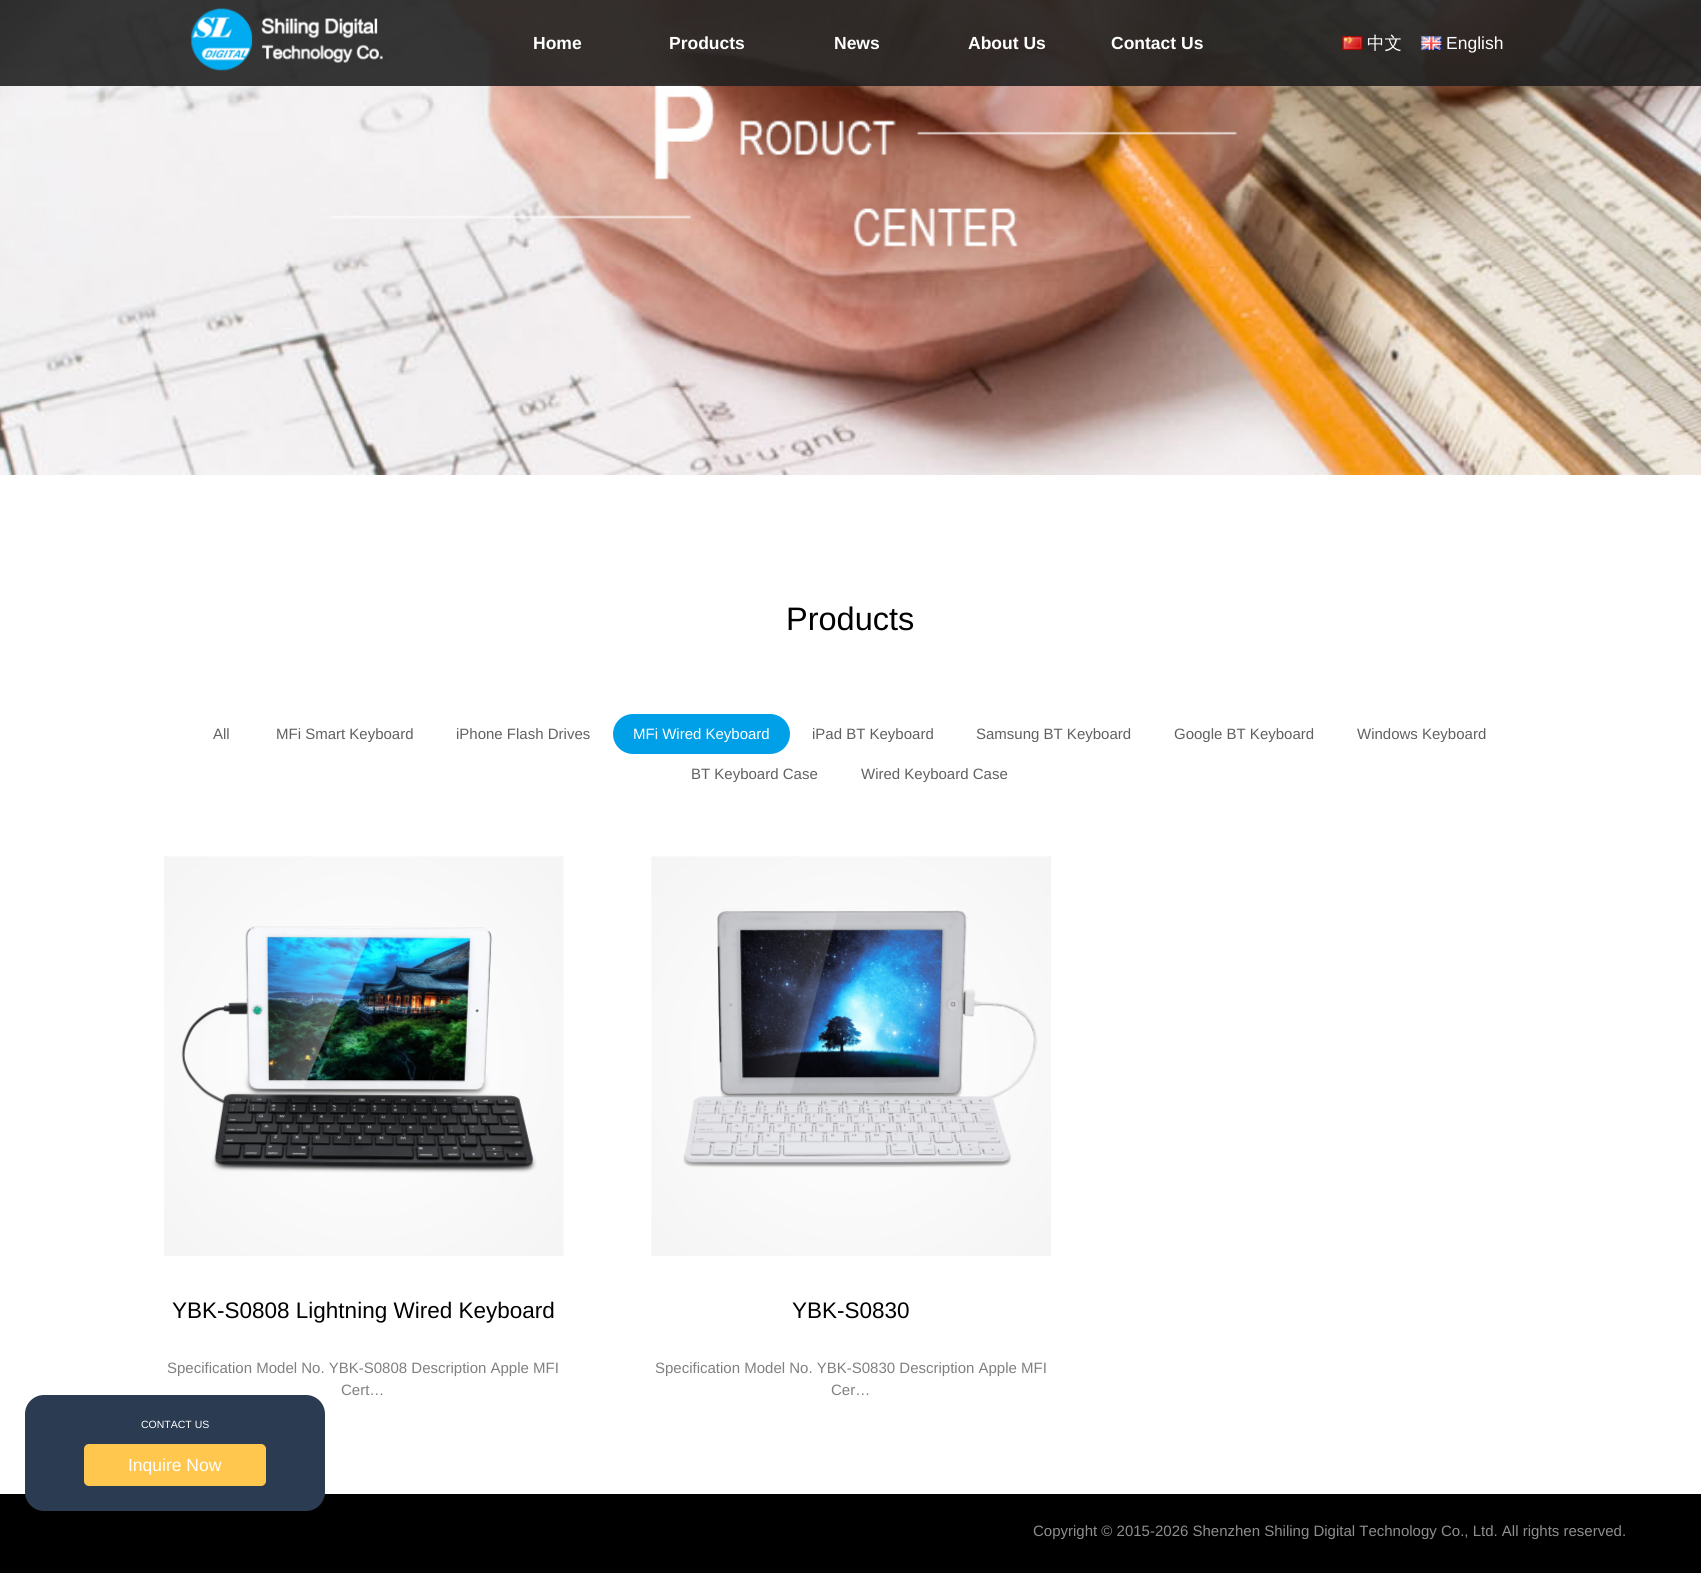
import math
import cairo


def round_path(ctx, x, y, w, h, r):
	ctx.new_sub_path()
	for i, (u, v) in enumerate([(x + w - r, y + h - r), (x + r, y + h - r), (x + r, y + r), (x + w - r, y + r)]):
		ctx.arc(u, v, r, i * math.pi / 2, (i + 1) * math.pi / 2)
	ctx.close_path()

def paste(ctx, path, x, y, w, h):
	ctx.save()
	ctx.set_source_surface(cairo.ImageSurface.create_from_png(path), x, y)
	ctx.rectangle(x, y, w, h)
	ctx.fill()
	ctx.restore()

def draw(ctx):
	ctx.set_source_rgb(0.012, 0.012, 0.012)
	ctx.paint()
	paste(ctx, 'media/4.png', 0, 0, 1701, 475)
	ctx.set_source_rgba(0.129, 0.129, 0.129, 0.9)
	ctx.rectangle(0, 0, 1701, 86)
	ctx.fill()
	paste(ctx, 'media/1.png', 190, 8, 193, 63)
	ctx.select_font_face('Liberation Sans', cairo.FONT_SLANT_NORMAL, cairo.FONT_WEIGHT_BOLD)
	ctx.set_font_size(17.5)
	ctx.set_source_rgb(1, 1, 1)
	for x, y, s in [
		(533, 49, 'Home'),
		(669, 49, 'Products'),
		(834, 49, 'News'),
		(968, 49, 'About Us'),
		(1111, 49, 'Contact Us'),
	]:
		ctx.move_to(x, y)
		ctx.show_text(s)
	paste(ctx, 'media/2.png', 1342, 36, 21, 14)
	ctx.select_font_face('WenQuanYi Zen Hei Medium')
	ctx.move_to(1367, 49)
	ctx.show_text('中文')
	paste(ctx, 'media/3.png', 1421, 36, 21, 14)
	ctx.select_font_face('Liberation Sans')
	ctx.move_to(1446, 49)
	ctx.show_text('English')
	ctx.rectangle(0, 475, 1701, 1019)
	ctx.fill()
	ctx.set_font_size(32.5)
	ctx.set_source_rgb(0, 0, 0)
	ctx.move_to(786, 630)
	ctx.show_text('Products')
	ctx.set_font_size(15)
	ctx.set_source_rgb(0.38, 0.38, 0.38)
	for x, y, s in [
		(213, 739, 'All'),
		(276, 739, 'MFi Smart Keyboard'),
		(456, 739, 'iPhone Flash Drives'),
	]:
		ctx.move_to(x, y)
		ctx.show_text(s)
	ctx.set_source_rgb(0, 0.627, 0.91)
	round_path(ctx, 613, 714, 177, 40, 20)
	ctx.fill()
	ctx.set_source_rgb(1, 1, 1)
	ctx.move_to(633, 739)
	ctx.show_text('MFi Wired Keyboard')
	ctx.set_source_rgb(0.38, 0.38, 0.38)
	for x, y, s in [
		(812, 739, 'iPad BT Keyboard'),
		(976, 739, 'Samsung BT Keyboard'),
		(1174, 739, 'Google BT Keyboard'),
		(1357, 739, 'Windows Keyboard'),
		(691, 779, 'BT Keyboard Case'),
		(861, 779, 'Wired Keyboard Case'),
	]:
		ctx.move_to(x, y)
		ctx.show_text(s)
	paste(ctx, 'media/5.png', 164, 856, 400, 400)
	ctx.set_font_size(22.5)
	ctx.set_source_rgb(0, 0, 0)
	ctx.move_to(172, 1318)
	ctx.show_text('YBK-S0808 Lightning Wired Keyboard')
	ctx.set_font_size(15)
	ctx.set_source_rgb(0.502, 0.502, 0.502)
	ctx.move_to(167, 1373)
	ctx.show_text('Specification Model No. YBK-S0808 Description Apple MFI')
	ctx.move_to(341, 1395)
	ctx.show_text('Cert…')
	paste(ctx, 'media/6.png', 651, 856, 400, 400)
	ctx.set_font_size(22.5)
	ctx.set_source_rgb(0, 0, 0)
	ctx.move_to(792, 1318)
	ctx.show_text('YBK-S0830')
	ctx.set_font_size(15)
	ctx.set_source_rgb(0.502, 0.502, 0.502)
	ctx.move_to(655, 1373)
	ctx.show_text('Specification Model No. YBK-S0830 Description Apple MFI')
	ctx.move_to(831, 1395)
	ctx.show_text('Cer…')
	ctx.set_source_rgb(0, 0, 0)
	ctx.rectangle(0, 1494, 1701, 75)
	ctx.fill()
	ctx.set_source_rgb(0.169, 0.231, 0.322)
	round_path(ctx, 25, 1395, 300, 116, 19)
	ctx.fill()
	ctx.set_font_size(10.5)
	ctx.set_source_rgb(1, 1, 1)
	ctx.move_to(141, 1428)
	ctx.show_text('CONTACT US')
	ctx.set_source_rgb(1, 0.78, 0.306)
	round_path(ctx, 84, 1444, 182, 42, 5)
	ctx.fill()
	ctx.set_font_size(17.5)
	ctx.set_source_rgb(1, 1, 1)
	ctx.move_to(128, 1471)
	ctx.show_text('Inquire Now')
	ctx.set_font_size(15)
	ctx.set_source_rgb(0.557, 0.557, 0.557)
	ctx.move_to(1033, 1536)
	ctx.show_text('Copyright © 2015-2026 Shenzhen Shiling Digital Technology Co., Ltd. All rights reserved.')


surface = cairo.ImageSurface(cairo.FORMAT_RGB24, 1701, 1573)
ctx = cairo.Context(surface)
options = cairo.FontOptions()
options.set_hint_metrics(cairo.HINT_METRICS_OFF)
options.set_hint_style(cairo.HINT_STYLE_NONE)
ctx.set_font_options(options)
ctx.set_miter_limit(4)
draw(ctx)
surface.write_to_png('image.png')
